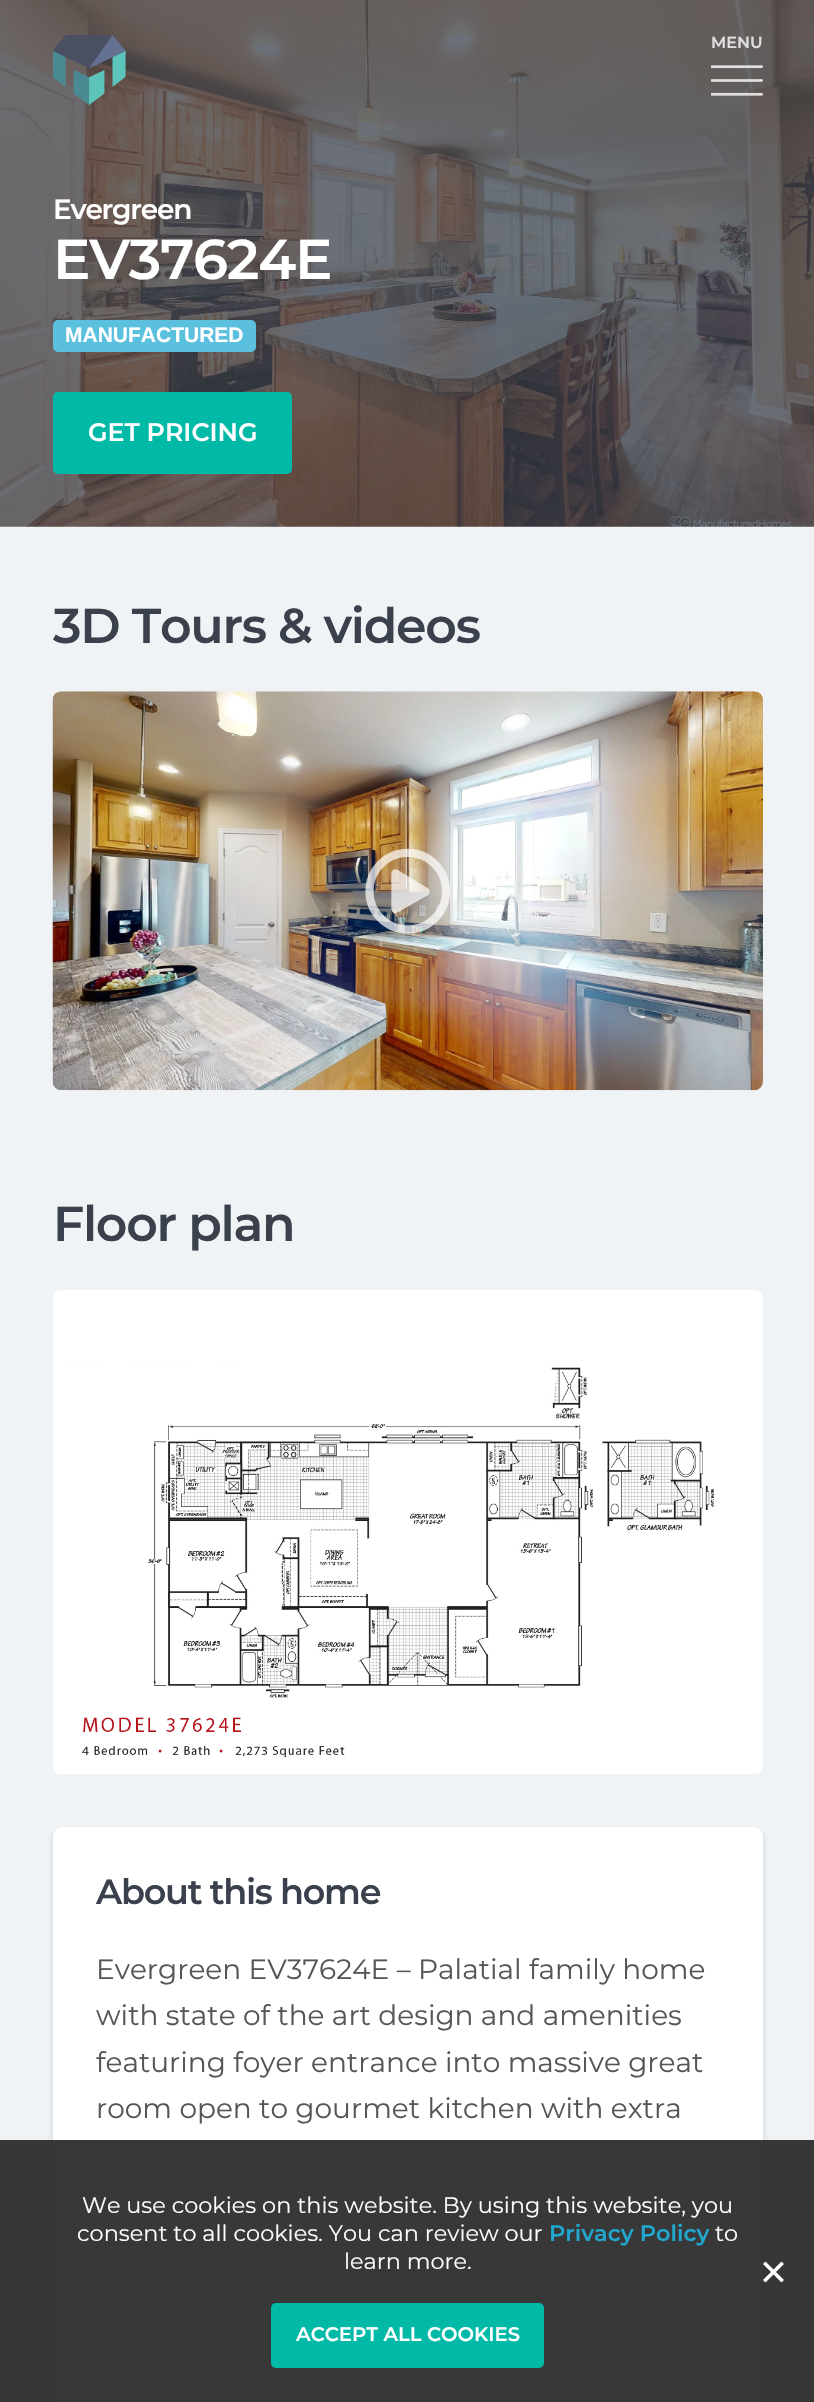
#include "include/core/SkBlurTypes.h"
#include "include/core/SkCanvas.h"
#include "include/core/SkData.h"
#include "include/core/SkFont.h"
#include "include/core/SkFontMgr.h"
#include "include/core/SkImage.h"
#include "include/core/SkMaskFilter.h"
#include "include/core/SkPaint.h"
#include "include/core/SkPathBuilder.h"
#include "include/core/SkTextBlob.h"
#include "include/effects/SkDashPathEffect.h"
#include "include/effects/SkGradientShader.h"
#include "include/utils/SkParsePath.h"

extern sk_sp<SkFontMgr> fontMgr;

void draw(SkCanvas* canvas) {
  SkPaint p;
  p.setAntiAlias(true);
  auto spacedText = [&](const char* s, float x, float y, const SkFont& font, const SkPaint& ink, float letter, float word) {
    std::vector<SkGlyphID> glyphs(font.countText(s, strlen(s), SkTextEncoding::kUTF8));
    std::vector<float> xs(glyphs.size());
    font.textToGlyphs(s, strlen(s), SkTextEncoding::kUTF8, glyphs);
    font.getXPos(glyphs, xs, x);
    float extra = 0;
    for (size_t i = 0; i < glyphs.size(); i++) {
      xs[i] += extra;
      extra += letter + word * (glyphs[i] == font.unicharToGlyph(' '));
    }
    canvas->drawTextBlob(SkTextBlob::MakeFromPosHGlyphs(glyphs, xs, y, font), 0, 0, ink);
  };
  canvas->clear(SkColorSetRGB(240, 243, 246));
  canvas->drawImageRect(SkImages::DeferredFromEncodedData(SkData::MakeFromFileName("images/3.png")), SkRect::MakeLTRB(0, 0, 814, 527), SkSamplingOptions());
  canvas->drawImageRect(SkImages::DeferredFromEncodedData(SkData::MakeFromFileName("images/1.png")), SkRect::MakeLTRB(53, 35, 126, 105), SkSamplingOptions());
  canvas->drawImageRect(SkImages::DeferredFromEncodedData(SkData::MakeFromFileName("images/2.png")), SkRect::MakeLTRB(711, 65, 763, 96), SkSamplingOptions());
  p.setColor(SkColorSetRGB(91, 192, 222));
  canvas->drawRoundRect(SkRect::MakeLTRB(53, 320, 256, 352), 5, 5, p);
  p.setColor(SkColorSetRGB(0, 186, 167));
  canvas->drawRoundRect(SkRect::MakeLTRB(53, 392, 292, 474), 5, 5, p);
  canvas->drawImageRect(SkImages::DeferredFromEncodedData(SkData::MakeFromFileName("images/4.png")), SkRect::MakeLTRB(52, 691, 763, 1091), SkSamplingOptions());
  canvas->drawImageRect(SkImages::DeferredFromEncodedData(SkData::MakeFromFileName("images/5.png")), SkRect::MakeLTRB(365, 848, 450, 934), SkSamplingOptions());
  canvas->drawImageRect(SkImages::DeferredFromEncodedData(SkData::MakeFromFileName("images/6.png")), SkRect::MakeLTRB(53, 1290, 763, 1774), SkSamplingOptions());
  p.setColor(SkColorSetARGB(26, 34, 39, 45));
  p.setMaskFilter(SkMaskFilter::MakeBlur(kNormal_SkBlurStyle, 2));
  canvas->drawRoundRect(SkRect::MakeLTRB(51, 1829, 765, 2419), 11, 11, p);
  p.setMaskFilter(nullptr);
  p.setColor(SK_ColorWHITE);
  canvas->drawRoundRect(SkRect::MakeLTRB(53, 1827, 763, 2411), 9, 9, p);
  p.setColor(SkColorSetARGB(230, 34, 34, 34));
  canvas->drawRect(SkRect::MakeLTRB(0, 2140, 814, 2402), p);
  p.setColor(SK_ColorWHITE);
  canvas->drawPath(SkPathBuilder().moveTo(781.5f, 2261.5f).lineTo(784, 2264).lineTo(765.5f, 2282.5f).lineTo(763, 2280).close().detach(), p);
  canvas->drawPath(SkPathBuilder().moveTo(763, 2264).lineTo(765.5f, 2261.5f).lineTo(784, 2280).lineTo(781.5f, 2282.5f).close().detach(), p);
  p.setColor(SkColorSetRGB(0, 186, 167));
  canvas->drawRoundRect(SkRect::MakeLTRB(271, 2303, 544, 2368), 5, 5, p);
  SkFont font1(fontMgr->matchFamilyStyle("Montserrat", SkFontStyle(600, SkFontStyle::kNormal_Width, SkFontStyle::kUpright_Slant)), 16);
  font1.setSubpixel(true);
  p.setColor(SkColorSetRGB(224, 223, 223));
  canvas->drawString("MENU", 711, 48, font1, p);
  SkFont font2(fontMgr->matchFamilyStyle("Montserrat", SkFontStyle(600, SkFontStyle::kNormal_Width, SkFontStyle::kUpright_Slant)), 28);
  font2.setSubpixel(true);
  p.setColor(SK_ColorWHITE);
  spacedText("Evergreen", 53, 219, font2, p, -1.25f, 0);
  SkFont font3(fontMgr->matchFamilyStyle("Montserrat", SkFontStyle(600, SkFontStyle::kNormal_Width, SkFontStyle::kUpright_Slant)), 56);
  font3.setSubpixel(true);
  spacedText("EV37624E", 53, 279, font3, p, -1.25f, 0);
  SkFont font4(fontMgr->matchFamilyStyle("Liberation Sans", SkFontStyle::Bold()), 21);
  font4.setSubpixel(true);
  canvas->drawString("MANUFACTURED", 65, 342, font4, p);
  SkFont font5(fontMgr->matchFamilyStyle("Montserrat", SkFontStyle(600, SkFontStyle::kNormal_Width, SkFontStyle::kUpright_Slant)), 25.25f);
  font5.setSubpixel(true);
  canvas->drawString("GET PRICING", 88, 441, font5, p);
  SkFont font6(fontMgr->matchFamilyStyle("Montserrat", SkFontStyle(600, SkFontStyle::kNormal_Width, SkFontStyle::kUpright_Slant)), 49);
  font6.setSubpixel(true);
  p.setColor(SkColorSetRGB(58, 65, 76));
  spacedText("3D Tours & videos", 53, 643, font6, p, -1.25f, 0);
  spacedText("Floor plan", 53, 1241, font6, p, -1.25f, 0);
  SkFont font7(fontMgr->matchFamilyStyle("Montserrat", SkFontStyle(600, SkFontStyle::kNormal_Width, SkFontStyle::kUpright_Slant)), 35);
  font7.setSubpixel(true);
  spacedText("About this home", 96, 1904, font7, p, -1.25f, 0);
  SkFont font8(fontMgr->matchFamilyStyle("Montserrat", SkFontStyle::Normal()), 28);
  font8.setSubpixel(true);
  p.setColor(SkColorSetRGB(86, 86, 86));
  canvas->drawString("Evergreen EV37624E – Palatial family home", 96, 1979, font8, p);
  canvas->drawString("with state of the art design and amenities", 96, 2025, font8, p);
  canvas->drawString("featuring foyer entrance into massive great", 96, 2072, font8, p);
  canvas->drawString("room open to gourmet kitchen with extra", 96, 2118, font8, p);
  SkFont font9(fontMgr->matchFamilyStyle("Montserrat", SkFontStyle::Normal()), 22.4f);
  font9.setSubpixel(true);
  p.setColor(SK_ColorWHITE);
  canvas->drawString("We use cookies on this website. By using this website, you", 82, 2213, font9, p);
  canvas->drawString("consent to all cookies. You can review our", 77, 2241, font9, p);
  SkFont font10(fontMgr->matchFamilyStyle("Montserrat", SkFontStyle(600, SkFontStyle::kNormal_Width, SkFontStyle::kUpright_Slant)), 22.4f);
  font10.setSubpixel(true);
  p.setColor(SkColorSetRGB(33, 166, 206));
  canvas->drawString("Privacy Policy", 549, 2241, font10, p);
  p.setColor(SK_ColorWHITE);
  canvas->drawString("to", 715, 2241, font9, p);
  canvas->drawString("learn more.", 344, 2269, font9, p);
  SkFont font11(fontMgr->matchFamilyStyle("Montserrat", SkFontStyle(600, SkFontStyle::kNormal_Width, SkFontStyle::kUpright_Slant)), 19.6f);
  font11.setSubpixel(true);
  canvas->drawString("ACCEPT ALL COOKIES", 296, 2341, font11, p);
}
